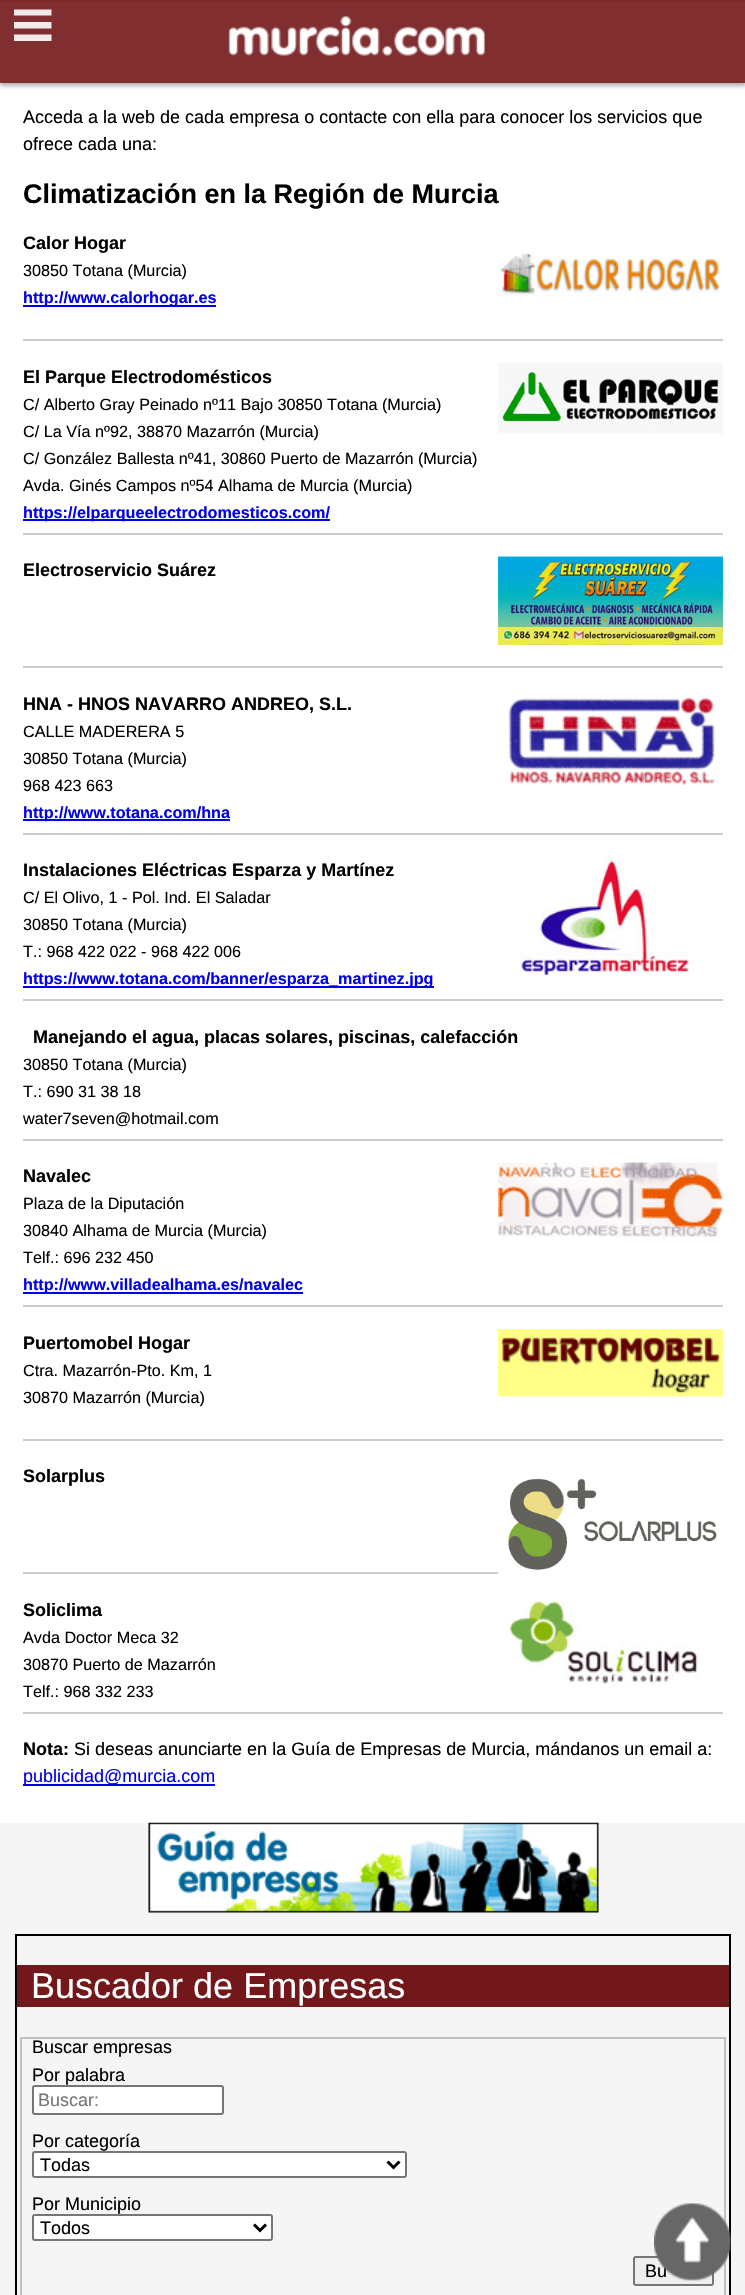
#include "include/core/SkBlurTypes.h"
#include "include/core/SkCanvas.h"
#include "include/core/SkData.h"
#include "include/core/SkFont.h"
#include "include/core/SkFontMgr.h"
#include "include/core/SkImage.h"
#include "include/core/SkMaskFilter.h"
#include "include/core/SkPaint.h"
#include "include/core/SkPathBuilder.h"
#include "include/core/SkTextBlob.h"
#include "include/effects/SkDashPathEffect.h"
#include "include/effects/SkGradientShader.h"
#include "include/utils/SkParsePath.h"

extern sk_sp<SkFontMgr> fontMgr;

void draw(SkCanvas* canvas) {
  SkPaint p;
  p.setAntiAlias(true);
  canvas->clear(SK_ColorWHITE);
  p.setColor(SkColorSetRGB(204, 204, 204));
  canvas->drawRect(SkRect::MakeLTRB(0, 0, 745, 2), p);
  canvas->save();
  canvas->clipPath(SkPathBuilder(SkPathFillType::kEvenOdd).moveTo(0, 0).lineTo(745, 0).lineTo(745, 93).lineTo(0, 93).close().moveTo(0, 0).lineTo(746, 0).lineTo(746, 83).lineTo(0, 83).close().detach(), true);
  p.setColor(SkColorSetRGB(179, 179, 179));
  p.setMaskFilter(SkMaskFilter::MakeBlur(kNormal_SkBlurStyle, 2));
  canvas->drawRect(SkRect::MakeLTRB(0, 3, 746, 86), p);
  p.setMaskFilter(nullptr);
  canvas->restore();
  p.setColor(SkColorSetARGB(230, 114, 23, 26));
  canvas->drawRect(SkRect::MakeLTRB(0, 0, 745, 83), p);
  canvas->drawImageRect(SkImages::DeferredFromEncodedData(SkData::MakeFromFileName("images/1.png")), SkRect::MakeLTRB(228, 15, 485, 56), SkSamplingOptions());
  p.setColor(SkColorSetARGB(230, 255, 255, 255));
  canvas->drawPath(SkPathBuilder(SkPathFillType::kEvenOdd).moveTo(51.5f, 15.5f).lineTo(14, 15.5f).lineTo(14, 9.5f).lineTo(51.5f, 9.5f).close().moveTo(51.5f, 28.5f).lineTo(14, 28.5f).lineTo(14, 22).lineTo(51.5f, 22).close().moveTo(14, 41).lineTo(51.5f, 41).lineTo(51.5f, 34.5f).lineTo(14, 34.5f).close().detach(), p);
  canvas->drawImageRect(SkImages::DeferredFromEncodedData(SkData::MakeFromFileName("images/2.png")), SkRect::MakeLTRB(500, 253, 719, 298), SkSamplingOptions());
  p.setColor(SkColorSetRGB(204, 204, 204));
  canvas->drawRect(SkRect::MakeLTRB(23, 339, 723, 341), p);
  p.setColor(SkColorSetRGB(0, 0, 238));
  canvas->drawRect(SkRect::MakeLTRB(23, 305, 216, 307), p);
  canvas->drawImageRect(SkImages::DeferredFromEncodedData(SkData::MakeFromFileName("images/3.png")), SkRect::MakeLTRB(498, 363, 723, 434), SkSamplingOptions());
  p.setColor(SkColorSetRGB(204, 204, 204));
  canvas->drawRect(SkRect::MakeLTRB(23, 533, 723, 535), p);
  p.setColor(SkColorSetRGB(0, 0, 238));
  canvas->drawRect(SkRect::MakeLTRB(23, 519, 330, 521), p);
  canvas->drawImageRect(SkImages::DeferredFromEncodedData(SkData::MakeFromFileName("images/4.png")), SkRect::MakeLTRB(498, 556, 723, 645), SkSamplingOptions());
  p.setColor(SkColorSetRGB(204, 204, 204));
  canvas->drawRect(SkRect::MakeLTRB(23, 666, 723, 668), p);
  canvas->drawImageRect(SkImages::DeferredFromEncodedData(SkData::MakeFromFileName("images/5.png")), SkRect::MakeLTRB(508, 697, 715, 786), SkSamplingOptions());
  canvas->drawRect(SkRect::MakeLTRB(23, 833, 723, 835), p);
  p.setColor(SkColorSetRGB(0, 0, 238));
  canvas->drawRect(SkRect::MakeLTRB(23, 819, 230, 821), p);
  canvas->drawImageRect(SkImages::DeferredFromEncodedData(SkData::MakeFromFileName("images/6.png")), SkRect::MakeLTRB(519, 856, 689, 975), SkSamplingOptions());
  p.setColor(SkColorSetRGB(204, 204, 204));
  canvas->drawRect(SkRect::MakeLTRB(23, 999, 723, 1001), p);
  p.setColor(SkColorSetRGB(0, 0, 238));
  canvas->drawRect(SkRect::MakeLTRB(23, 986, 434, 988), p);
  p.setColor(SkColorSetRGB(204, 204, 204));
  canvas->drawRect(SkRect::MakeLTRB(23, 1139, 723, 1141), p);
  canvas->drawImageRect(SkImages::DeferredFromEncodedData(SkData::MakeFromFileName("images/7.png")), SkRect::MakeLTRB(498, 1162, 723, 1238), SkSamplingOptions());
  canvas->drawRect(SkRect::MakeLTRB(23, 1305, 723, 1307), p);
  p.setColor(SkColorSetRGB(0, 0, 238));
  canvas->drawRect(SkRect::MakeLTRB(23, 1292, 303, 1294), p);
  canvas->drawImageRect(SkImages::DeferredFromEncodedData(SkData::MakeFromFileName("images/8.png")), SkRect::MakeLTRB(498, 1329, 723, 1397), SkSamplingOptions());
  p.setColor(SkColorSetRGB(204, 204, 204));
  canvas->drawRect(SkRect::MakeLTRB(23, 1439, 723, 1441), p);
  canvas->drawImageRect(SkImages::DeferredFromEncodedData(SkData::MakeFromFileName("images/9.png")), SkRect::MakeLTRB(498, 1478, 723, 1574), SkSamplingOptions());
  canvas->drawRect(SkRect::MakeLTRB(23, 1572, 498, 1574), p);
  canvas->drawImageRect(SkImages::DeferredFromEncodedData(SkData::MakeFromFileName("images/10.png")), SkRect::MakeLTRB(498, 1599, 700, 1684), SkSamplingOptions());
  canvas->drawRect(SkRect::MakeLTRB(23, 1712, 723, 1714), p);
  p.setColor(SkColorSetRGB(0, 0, 238));
  canvas->drawRect(SkRect::MakeLTRB(23, 1784, 215, 1786), p);
  p.setColor(SkColorSetRGB(245, 245, 245));
  canvas->drawRect(SkRect::MakeLTRB(0, 1823, 745, 2295), p);
  canvas->drawImageRect(SkImages::DeferredFromEncodedData(SkData::MakeFromFileName("images/11.png")), SkRect::MakeLTRB(148, 1822, 599, 1913), SkSamplingOptions());
  p.setStyle(SkPaint::kStroke_Style);
  p.setStrokeWidth(2);
  p.setColor(SK_ColorBLACK);
  canvas->drawRect(SkRect::MakeLTRB(16, 1935, 730, 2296), p);
  p.setStyle(SkPaint::kFill_Style);
  p.setColor(SkColorSetRGB(114, 23, 26));
  canvas->drawRect(SkRect::MakeLTRB(17, 1965, 729, 2007), p);
  p.setStyle(SkPaint::kStroke_Style);
  p.setColor(SkColorSetRGB(192, 192, 192));
  canvas->drawRect(SkRect::MakeLTRB(21, 2038, 725, 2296), p);
  p.setStyle(SkPaint::kFill_Style);
  p.setColor(SK_ColorWHITE);
  canvas->drawRoundRect(SkRect::MakeLTRB(33, 2086, 223, 2114), 2, 2, p);
  p.setStyle(SkPaint::kStroke_Style);
  p.setColor(SkColorSetRGB(118, 118, 118));
  canvas->drawRoundRect(SkRect::MakeLTRB(33, 2086, 223, 2114), 2, 2, p);
  p.setStyle(SkPaint::kFill_Style);
  p.setColor(SK_ColorWHITE);
  canvas->drawRoundRect(SkRect::MakeLTRB(33, 2152, 406, 2177), 2, 2, p);
  p.setStyle(SkPaint::kStroke_Style);
  p.setColor(SkColorSetRGB(118, 118, 118));
  canvas->drawRoundRect(SkRect::MakeLTRB(33, 2152, 406, 2177), 2, 2, p);
  p.setStrokeWidth(3);
  p.setColor(SK_ColorBLACK);
  canvas->drawPath(SkPathBuilder().moveTo(387.5f, 2161.5f).lineTo(393.5f, 2167.5f).lineTo(399.5f, 2161.5f).detach(), p);
  p.setStyle(SkPaint::kFill_Style);
  p.setColor(SK_ColorWHITE);
  canvas->drawRoundRect(SkRect::MakeLTRB(33, 2215, 272, 2240), 2, 2, p);
  p.setStyle(SkPaint::kStroke_Style);
  p.setStrokeWidth(2);
  p.setColor(SkColorSetRGB(118, 118, 118));
  canvas->drawRoundRect(SkRect::MakeLTRB(33, 2215, 272, 2240), 2, 2, p);
  p.setStrokeWidth(3);
  p.setColor(SK_ColorBLACK);
  canvas->drawPath(SkPathBuilder().moveTo(254, 2224.5f).lineTo(260, 2230.5f).lineTo(266, 2224.5f).detach(), p);
  p.setStyle(SkPaint::kFill_Style);
  p.setColor(SkColorSetRGB(239, 239, 239));
  canvas->drawRoundRect(SkRect::MakeLTRB(634, 2257, 713, 2285), 2, 2, p);
  p.setStyle(SkPaint::kStroke_Style);
  p.setStrokeWidth(2);
  p.setColor(SkColorSetRGB(118, 118, 118));
  canvas->drawRoundRect(SkRect::MakeLTRB(634, 2257, 713, 2285), 2, 2, p);
  SkFont font1(fontMgr->matchFamilyStyle("Liberation Sans", SkFontStyle::Normal()), 18);
  font1.setSubpixel(true);
  p.setStyle(SkPaint::kFill_Style);
  p.setColor(SK_ColorBLACK);
  canvas->drawString("Acceda a la web de cada empresa o contacte con ella para conocer los servicios que", 23, 123, font1, p);
  canvas->drawString("ofrece cada una:", 23, 150, font1, p);
  SkFont font2(fontMgr->matchFamilyStyle("Liberation Sans", SkFontStyle::Bold()), 27);
  font2.setSubpixel(true);
  canvas->drawString("Climatización en la Región de Murcia", 23, 203, font2, p);
  SkFont font3(fontMgr->matchFamilyStyle("Liberation Sans", SkFontStyle::Bold()), 18);
  font3.setSubpixel(true);
  canvas->drawString("Calor Hogar", 23, 249, font3, p);
  SkFont font4(fontMgr->matchFamilyStyle("Liberation Sans", SkFontStyle::Normal()), 16.2f);
  font4.setSubpixel(true);
  canvas->drawString("30850 Totana (Murcia)", 23, 276, font4, p);
  SkFont font5(fontMgr->matchFamilyStyle("Liberation Sans", SkFontStyle::Bold()), 16.2f);
  font5.setSubpixel(true);
  p.setColor(SkColorSetRGB(0, 0, 238));
  canvas->drawString("http://www.calorhogar.es", 23, 303, font5, p);
  p.setColor(SK_ColorBLACK);
  canvas->drawString("El Parque Electrodomésticos", 23, 383, font3, p);
  canvas->drawString("C/ Alberto Gray Peinado nº11 Bajo 30850 Totana (Murcia)", 23, 410, font4, p);
  canvas->drawString("C/ La Vía nº92, 38870 Mazarrón (Murcia)", 23, 437, font4, p);
  canvas->drawString("C/ González Ballesta nº41, 30860 Puerto de Mazarrón (Murcia)", 23, 464, font4, p);
  canvas->drawString("Avda. Ginés Campos nº54 Alhama de Murcia (Murcia)", 23, 491, font4, p);
  p.setColor(SkColorSetRGB(0, 0, 238));
  canvas->drawString("https://elparqueelectrodomesticos.com/", 23, 518, font5, p);
  p.setColor(SK_ColorBLACK);
  canvas->drawString("Electroservicio Suárez", 23, 576, font3, p);
  canvas->drawString("HNA - HNOS NAVARRO ANDREO, S.L.", 23, 710, font3, p);
  canvas->drawString("CALLE MADERERA 5", 23, 737, font4, p);
  canvas->drawString("30850 Totana (Murcia)", 23, 764, font4, p);
  canvas->drawString("968 423 663", 23, 791, font4, p);
  p.setColor(SkColorSetRGB(0, 0, 238));
  canvas->drawString("http://www.totana.com/hna", 23, 818, font5, p);
  p.setColor(SK_ColorBLACK);
  canvas->drawString("Instalaciones Eléctricas Esparza y Martínez", 23, 876, font3, p);
  canvas->drawString("C/ El Olivo, 1 - Pol. Ind. El Saladar", 23, 903, font4, p);
  canvas->drawString("30850 Totana (Murcia)", 23, 930, font4, p);
  canvas->drawString("T.: 968 422 022 - 968 422 006", 23, 957, font4, p);
  p.setColor(SkColorSetRGB(0, 0, 238));
  canvas->drawString("https://www.totana.com/banner/esparza_martinez.jpg", 23, 984, font5, p);
  p.setColor(SK_ColorBLACK);
  canvas->drawString("Manejando el agua, placas solares, piscinas, calefacción", 33, 1043, font3, p);
  canvas->drawString("30850 Totana (Murcia)", 23, 1070, font4, p);
  canvas->drawString("T.: 690 31 38 18", 23, 1097, font4, p);
  canvas->drawString("water7seven@hotmail.com", 23, 1124, font4, p);
  canvas->drawString("Navalec", 23, 1182, font3, p);
  canvas->drawString("Plaza de la Diputación", 23, 1209, font4, p);
  canvas->drawString("30840 Alhama de Murcia (Murcia)", 23, 1236, font4, p);
  canvas->drawString("Telf.: 696 232 450", 23, 1263, font4, p);
  p.setColor(SkColorSetRGB(0, 0, 238));
  canvas->drawString("http://www.villadealhama.es/navalec", 23, 1290, font5, p);
  p.setColor(SK_ColorBLACK);
  canvas->drawString("Puertomobel Hogar", 23, 1349, font3, p);
  canvas->drawString("Ctra. Mazarrón-Pto. Km, 1", 23, 1376, font4, p);
  canvas->drawString("30870 Mazarrón (Murcia)", 23, 1403, font4, p);
  canvas->drawString("Solarplus", 23, 1482, font3, p);
  canvas->drawString("Soliclima", 23, 1616, font3, p);
  canvas->drawString("Avda Doctor Meca 32", 23, 1643, font4, p);
  canvas->drawString("30870 Puerto de Mazarrón", 23, 1670, font4, p);
  canvas->drawString("Telf.: 968 332 233", 23, 1697, font4, p);
  canvas->drawString("Nota:", 23, 1755, font3, p);
  canvas->drawString("Si deseas anunciarte en la Guía de Empresas de Murcia, mándanos un email a:", 74, 1755, font1, p);
  p.setColor(SkColorSetRGB(0, 0, 238));
  canvas->drawString("publicidad@murcia.com", 23, 1782, font1, p);
  SkFont font6(fontMgr->matchFamilyStyle("Liberation Sans", SkFontStyle::Normal()), 36);
  font6.setSubpixel(true);
  p.setColor(SK_ColorWHITE);
  canvas->drawString("Buscador de Empresas", 31, 1998, font6, p);
  p.setColor(SK_ColorBLACK);
  canvas->drawString("Buscar empresas", 32, 2053, font1, p);
  canvas->drawString("Por palabra", 32, 2081, font1, p);
  p.setColor(SkColorSetRGB(117, 117, 117));
  canvas->drawString("Buscar:", 38, 2106, font1, p);
  p.setColor(SK_ColorBLACK);
  canvas->drawString("Por categoría", 32, 2147, font1, p);
  canvas->drawString("Todas", 40, 2171, font1, p);
  canvas->drawString("Por Municipio", 32, 2210, font1, p);
  canvas->drawString("Todos", 40, 2234, font1, p);
  canvas->drawString("Bu", 645, 2277, font1, p);
  canvas->drawImageRect(SkImages::DeferredFromEncodedData(SkData::MakeFromFileName("images/12.png")), SkRect::MakeLTRB(654, 2203, 731, 2281), SkSamplingOptions());
}
